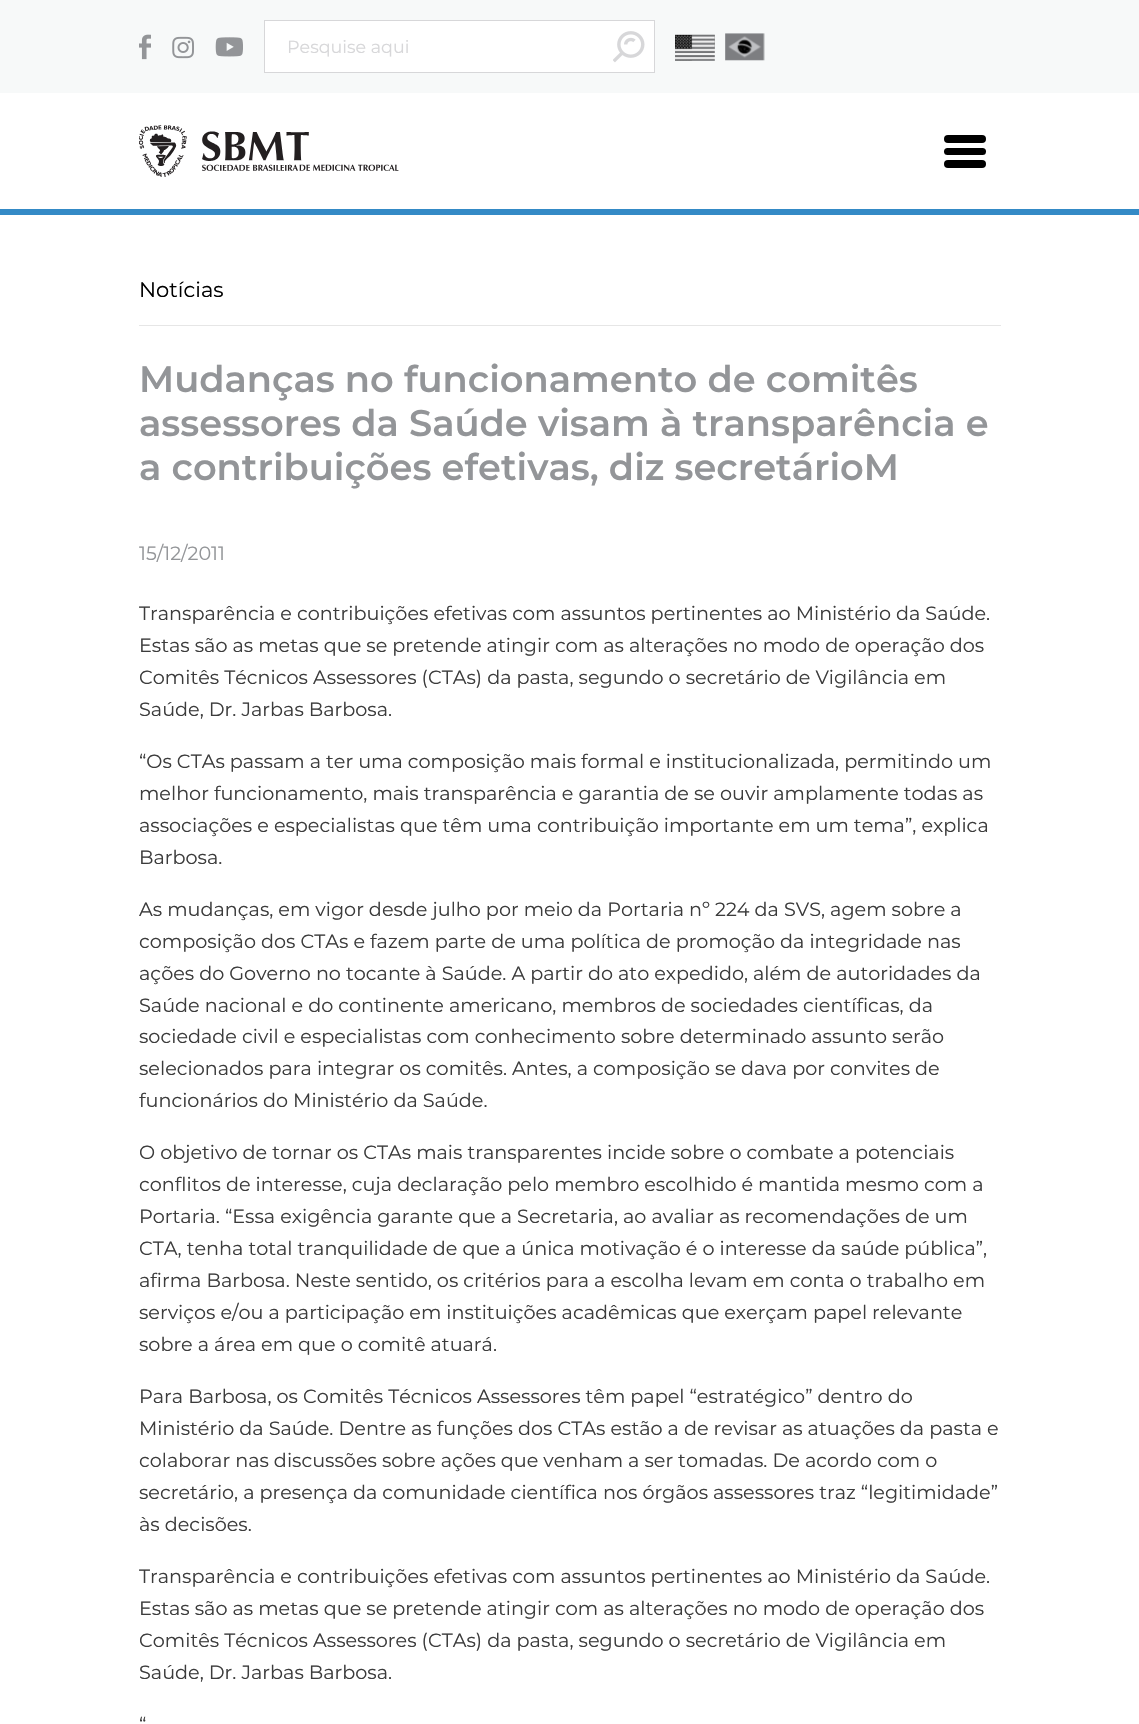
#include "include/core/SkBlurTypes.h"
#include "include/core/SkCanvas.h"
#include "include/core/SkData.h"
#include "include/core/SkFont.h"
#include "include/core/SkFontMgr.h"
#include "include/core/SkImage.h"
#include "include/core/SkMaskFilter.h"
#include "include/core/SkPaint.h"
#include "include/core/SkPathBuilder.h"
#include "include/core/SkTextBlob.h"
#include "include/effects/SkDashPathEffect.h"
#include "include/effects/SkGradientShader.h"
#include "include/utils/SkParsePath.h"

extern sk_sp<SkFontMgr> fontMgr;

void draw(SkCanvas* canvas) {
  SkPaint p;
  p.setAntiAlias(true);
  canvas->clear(SK_ColorWHITE);
  p.setColor(SkColorSetRGB(247, 249, 249));
  canvas->drawRect(SkRect::MakeLTRB(0, 0, 1139, 93), p);
  canvas->drawImageRect(SkImages::DeferredFromEncodedData(SkData::MakeFromFileName("images/1.png")), SkRect::MakeLTRB(139, 34, 151, 60), SkSamplingOptions());
  canvas->drawImageRect(SkImages::DeferredFromEncodedData(SkData::MakeFromFileName("images/2.png")), SkRect::MakeLTRB(172, 36, 194, 59), SkSamplingOptions());
  canvas->drawImageRect(SkImages::DeferredFromEncodedData(SkData::MakeFromFileName("images/3.png")), SkRect::MakeLTRB(215, 37, 243, 57), SkSamplingOptions());
  p.setColor(SK_ColorWHITE);
  canvas->drawRect(SkRect::MakeLTRB(264.5f, 20.5f, 654.5f, 72.5f), p);
  p.setStyle(SkPaint::kStroke_Style);
  p.setStrokeWidth(1);
  p.setColor(SkColorSetRGB(215, 215, 217));
  canvas->drawRect(SkRect::MakeLTRB(264.5f, 20.5f, 654.5f, 72.5f), p);
  canvas->drawImageRect(SkImages::DeferredFromEncodedData(SkData::MakeFromFileName("images/4.png")), SkRect::MakeLTRB(613, 31, 645, 63), SkSamplingOptions());
  canvas->drawImageRect(SkImages::DeferredFromEncodedData(SkData::MakeFromFileName("images/5.png")), SkRect::MakeLTRB(675, 34, 715, 61), SkSamplingOptions());
  canvas->drawImageRect(SkImages::DeferredFromEncodedData(SkData::MakeFromFileName("images/6.png")), SkRect::MakeLTRB(725, 33, 765, 61), SkSamplingOptions());
  p.setStyle(SkPaint::kFill_Style);
  p.setColor(SkColorSetRGB(52, 138, 198));
  canvas->drawRect(SkRect::MakeLTRB(0, 209, 1139, 215), p);
  canvas->drawImageRect(SkImages::DeferredFromEncodedData(SkData::MakeFromFileName("images/7.png")), SkRect::MakeLTRB(139, 125, 399, 177), SkSamplingOptions());
  p.setColor(SK_ColorBLACK);
  canvas->drawRoundRect(SkRect::MakeLTRB(944, 135, 986, 143), 4, 4, p);
  canvas->drawRoundRect(SkRect::MakeLTRB(944, 148, 986, 155), 3.5f, 3.5f, p);
  canvas->drawRoundRect(SkRect::MakeLTRB(944, 160, 986, 168), 4, 4, p);
  p.setColor(SkColorSetRGB(230, 230, 230));
  canvas->drawRect(SkRect::MakeLTRB(139, 325, 1001, 326), p);
  SkFont font1(fontMgr->matchFamilyStyle("Montserrat", SkFontStyle::Normal()), 17.5f);
  font1.setSubpixel(true);
  p.setColor(SkColorSetRGB(215, 215, 217));
  canvas->drawString("Pesquise aqui", 287, 53, font1, p);
  SkFont font2(fontMgr->matchFamilyStyle("Montserrat", SkFontStyle::Normal()), 21);
  font2.setSubpixel(true);
  p.setColor(SK_ColorBLACK);
  canvas->drawString("Notícias", 139, 297, font2, p);
  SkFont font3(fontMgr->matchFamilyStyle("Montserrat", SkFontStyle(600, SkFontStyle::kNormal_Width, SkFontStyle::kUpright_Slant)), 36.8f);
  font3.setSubpixel(true);
  p.setColor(SkColorSetRGB(147, 149, 152));
  canvas->drawString("Mudanças no funcionamento de comitês", 139, 392, font3, p);
  canvas->drawString("assessores da Saúde visam à transparência e", 139, 436, font3, p);
  canvas->drawString("a contribuições efetivas, diz secretárioM", 139, 480, font3, p);
  SkFont font4(fontMgr->matchFamilyStyle("Montserrat", SkFontStyle::Normal()), 19.2f);
  font4.setSubpixel(true);
  canvas->drawString("15/12/2011", 139, 560, font4, p);
  p.setColor(SkColorSetRGB(60, 60, 60));
  canvas->drawString("Transparência e contribuições efetivas com assuntos pertinentes ao Ministério da Saúde.", 139, 620, font4, p);
  canvas->drawString("Estas são as metas que se pretende atingir com as alterações no modo de operação dos", 139, 652, font4, p);
  canvas->drawString("Comitês Técnicos Assessores (CTAs) da pasta, segundo o secretário de Vigilância em", 139, 684, font4, p);
  canvas->drawString("Saúde, Dr. Jarbas Barbosa.", 139, 716, font4, p);
  canvas->drawString("“Os CTAs passam a ter uma composição mais formal e institucionalizada, permitindo um", 139, 768, font4, p);
  canvas->drawString("melhor funcionamento, mais transparência e garantia de se ouvir amplamente todas as", 139, 800, font4, p);
  canvas->drawString("associações e especialistas que têm uma contribuição importante em um tema”, explica", 139, 832, font4, p);
  canvas->drawString("Barbosa.", 139, 864, font4, p);
  canvas->drawString("As mudanças, em vigor desde julho por meio da Portaria nº 224 da SVS, agem sobre a", 139, 916, font4, p);
  canvas->drawString("composição dos CTAs e fazem parte de uma política de promoção da integridade nas", 139, 948, font4, p);
  canvas->drawString("ações do Governo no tocante à Saúde. A partir do ato expedido, além de autoridades da", 139, 980, font4, p);
  canvas->drawString("Saúde nacional e do continente americano, membros de sociedades científicas, da", 139, 1012, font4, p);
  canvas->drawString("sociedade civil e especialistas com conhecimento sobre determinado assunto serão", 139, 1043, font4, p);
  canvas->drawString("selecionados para integrar os comitês. Antes, a composição se dava por convites de", 139, 1075, font4, p);
  canvas->drawString("funcionários do Ministério da Saúde.", 139, 1107, font4, p);
  canvas->drawString("O objetivo de tornar os CTAs mais transparentes incide sobre o combate a potenciais", 139, 1159, font4, p);
  canvas->drawString("conflitos de interesse, cuja declaração pelo membro escolhido é mantida mesmo com a", 139, 1191, font4, p);
  canvas->drawString("Portaria. “Essa exigência garante que a Secretaria, ao avaliar as recomendações de um", 139, 1223, font4, p);
  canvas->drawString("CTA, tenha total tranquilidade de que a única motivação é o interesse da saúde pública”,", 139, 1255, font4, p);
  canvas->drawString("afirma Barbosa. Neste sentido, os critérios para a escolha levam em conta o trabalho em", 139, 1287, font4, p);
  canvas->drawString("serviços e/ou a participação em instituições acadêmicas que exerçam papel relevante", 139, 1319, font4, p);
  canvas->drawString("sobre a área em que o comitê atuará.", 139, 1351, font4, p);
  canvas->drawString("Para Barbosa, os Comitês Técnicos Assessores têm papel “estratégico” dentro do", 139, 1403, font4, p);
  canvas->drawString("Ministério da Saúde. Dentre as funções dos CTAs estão a de revisar as atuações da pasta e", 139, 1435, font4, p);
  canvas->drawString("colaborar nas discussões sobre ações que venham a ser tomadas. De acordo com o", 139, 1467, font4, p);
  canvas->drawString("secretário, a presença da comunidade científica nos órgãos assessores traz “legitimidade”", 139, 1499, font4, p);
  canvas->drawString("às decisões.", 139, 1531, font4, p);
  canvas->drawString("Transparência e contribuições efetivas com assuntos pertinentes ao Ministério da Saúde.", 139, 1583, font4, p);
  canvas->drawString("Estas são as metas que se pretende atingir com as alterações no modo de operação dos", 139, 1615, font4, p);
  canvas->drawString("Comitês Técnicos Assessores (CTAs) da pasta, segundo o secretário de Vigilância em", 139, 1647, font4, p);
  canvas->drawString("Saúde, Dr. Jarbas Barbosa.", 139, 1679, font4, p);
  canvas->drawString("“", 139, 1731, font4, p);
}
